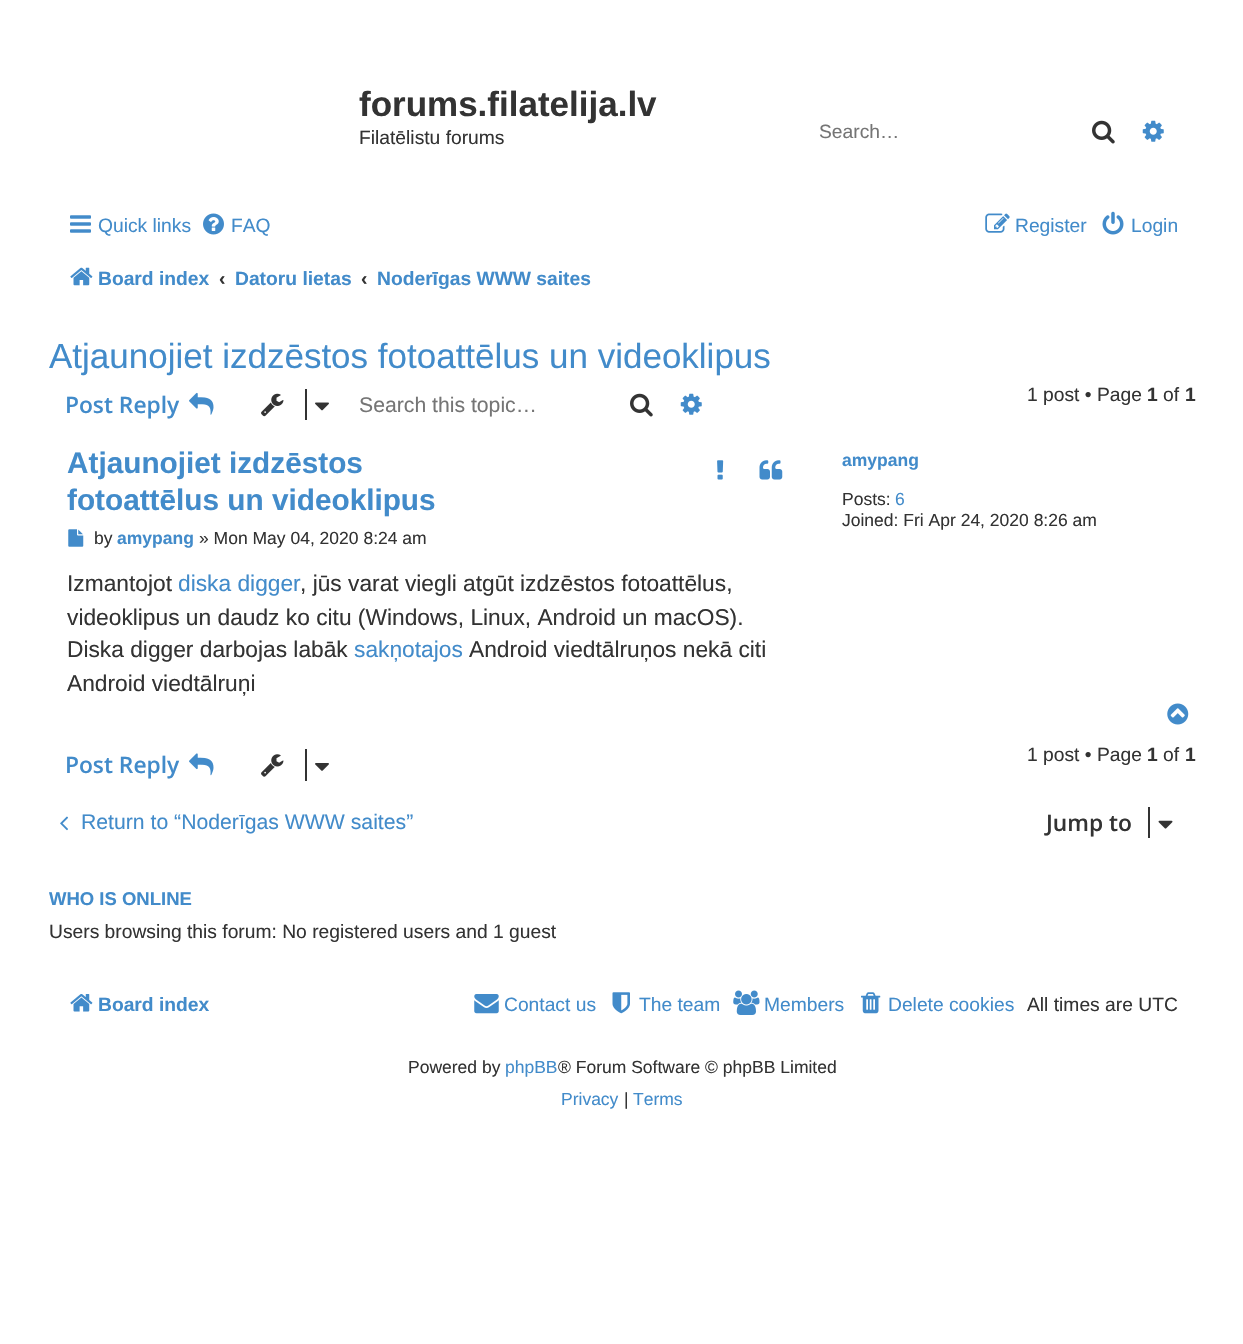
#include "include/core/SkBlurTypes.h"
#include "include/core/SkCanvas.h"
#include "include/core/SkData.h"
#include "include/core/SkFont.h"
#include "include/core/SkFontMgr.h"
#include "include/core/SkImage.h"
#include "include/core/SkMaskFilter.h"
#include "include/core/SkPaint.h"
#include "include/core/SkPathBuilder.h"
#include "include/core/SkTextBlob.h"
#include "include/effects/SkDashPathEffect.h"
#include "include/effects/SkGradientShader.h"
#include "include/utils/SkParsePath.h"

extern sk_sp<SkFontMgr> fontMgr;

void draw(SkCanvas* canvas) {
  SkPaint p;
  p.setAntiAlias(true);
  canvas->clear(SK_ColorWHITE);
  canvas->drawImageRect(SkImages::DeferredFromEncodedData(SkData::MakeFromFileName("images/1.png")), SkRect::MakeLTRB(1092, 120, 1115, 144), SkSamplingOptions());
  canvas->drawImageRect(SkImages::DeferredFromEncodedData(SkData::MakeFromFileName("images/2.png")), SkRect::MakeLTRB(1142, 120, 1164, 142), SkSamplingOptions());
  canvas->drawImageRect(SkImages::DeferredFromEncodedData(SkData::MakeFromFileName("images/3.png")), SkRect::MakeLTRB(70, 215, 91, 233), SkSamplingOptions());
  canvas->drawImageRect(SkImages::DeferredFromEncodedData(SkData::MakeFromFileName("images/4.png")), SkRect::MakeLTRB(203, 213, 224, 235), SkSamplingOptions());
  canvas->drawImageRect(SkImages::DeferredFromEncodedData(SkData::MakeFromFileName("images/5.png")), SkRect::MakeLTRB(985, 213, 1010, 233), SkSamplingOptions());
  canvas->drawImageRect(SkImages::DeferredFromEncodedData(SkData::MakeFromFileName("images/6.png")), SkRect::MakeLTRB(1102, 211, 1124, 235), SkSamplingOptions());
  canvas->drawImageRect(SkImages::DeferredFromEncodedData(SkData::MakeFromFileName("images/7.png")), SkRect::MakeLTRB(70, 267, 93, 286), SkSamplingOptions());
  canvas->drawImageRect(SkImages::DeferredFromEncodedData(SkData::MakeFromFileName("images/8.png")), SkRect::MakeLTRB(189, 392, 214, 415), SkSamplingOptions());
  canvas->drawImageRect(SkImages::DeferredFromEncodedData(SkData::MakeFromFileName("images/9.png")), SkRect::MakeLTRB(261, 393, 284, 417), SkSamplingOptions());
  p.setColor(SkColorSetRGB(51, 51, 51));
  canvas->drawRect(SkRect::MakeLTRB(305, 389, 307, 420), p);
  canvas->drawImageRect(SkImages::DeferredFromEncodedData(SkData::MakeFromFileName("images/10.png")), SkRect::MakeLTRB(315, 402, 329, 411), SkSamplingOptions());
  canvas->drawImageRect(SkImages::DeferredFromEncodedData(SkData::MakeFromFileName("images/1.png")), SkRect::MakeLTRB(630, 393, 653, 417), SkSamplingOptions());
  canvas->drawImageRect(SkImages::DeferredFromEncodedData(SkData::MakeFromFileName("images/2.png")), SkRect::MakeLTRB(680, 393, 702, 415), SkSamplingOptions());
  canvas->drawImageRect(SkImages::DeferredFromEncodedData(SkData::MakeFromFileName("images/11.png")), SkRect::MakeLTRB(717, 460, 724, 480), SkSamplingOptions());
  canvas->drawImageRect(SkImages::DeferredFromEncodedData(SkData::MakeFromFileName("images/12.png")), SkRect::MakeLTRB(759, 460, 783, 480), SkSamplingOptions());
  canvas->drawImageRect(SkImages::DeferredFromEncodedData(SkData::MakeFromFileName("images/13.png")), SkRect::MakeLTRB(68, 529, 84, 547), SkSamplingOptions());
  canvas->drawImageRect(SkImages::DeferredFromEncodedData(SkData::MakeFromFileName("images/14.png")), SkRect::MakeLTRB(1167, 703, 1189, 725), SkSamplingOptions());
  canvas->drawImageRect(SkImages::DeferredFromEncodedData(SkData::MakeFromFileName("images/15.png")), SkRect::MakeLTRB(189, 753, 214, 776), SkSamplingOptions());
  canvas->drawImageRect(SkImages::DeferredFromEncodedData(SkData::MakeFromFileName("images/16.png")), SkRect::MakeLTRB(261, 754, 284, 777), SkSamplingOptions());
  canvas->drawRect(SkRect::MakeLTRB(305, 749, 307, 781), p);
  canvas->drawImageRect(SkImages::DeferredFromEncodedData(SkData::MakeFromFileName("images/17.png")), SkRect::MakeLTRB(315, 763, 329, 771), SkSamplingOptions());
  canvas->drawImageRect(SkImages::DeferredFromEncodedData(SkData::MakeFromFileName("images/18.png")), SkRect::MakeLTRB(60, 816, 68, 831), SkSamplingOptions());
  canvas->drawRect(SkRect::MakeLTRB(1148, 807, 1150, 838), p);
  canvas->drawImageRect(SkImages::DeferredFromEncodedData(SkData::MakeFromFileName("images/19.png")), SkRect::MakeLTRB(1158, 820, 1173, 829), SkSamplingOptions());
  canvas->drawImageRect(SkImages::DeferredFromEncodedData(SkData::MakeFromFileName("images/20.png")), SkRect::MakeLTRB(70, 994, 93, 1012), SkSamplingOptions());
  canvas->drawImageRect(SkImages::DeferredFromEncodedData(SkData::MakeFromFileName("images/21.png")), SkRect::MakeLTRB(474, 994, 499, 1014), SkSamplingOptions());
  canvas->drawImageRect(SkImages::DeferredFromEncodedData(SkData::MakeFromFileName("images/22.png")), SkRect::MakeLTRB(612, 992, 630, 1014), SkSamplingOptions());
  canvas->drawImageRect(SkImages::DeferredFromEncodedData(SkData::MakeFromFileName("images/23.png")), SkRect::MakeLTRB(733, 990, 760, 1015), SkSamplingOptions());
  canvas->drawImageRect(SkImages::DeferredFromEncodedData(SkData::MakeFromFileName("images/24.png")), SkRect::MakeLTRB(861, 992, 881, 1014), SkSamplingOptions());
  SkFont font1(fontMgr->matchFamilyStyle("Liberation Sans", SkFontStyle::Bold()), 35);
  font1.setSubpixel(true);
  canvas->drawString("forums.filatelija.lv", 359, 116, font1, p);
  SkFont font2(fontMgr->matchFamilyStyle("Liberation Sans", SkFontStyle::Normal()), 19.25f);
  font2.setSubpixel(true);
  canvas->drawString("Filatēlistu forums", 359, 144, font2, p);
  p.setColor(SkColorSetRGB(117, 117, 117));
  canvas->drawString("Search…", 819, 138, font2, p);
  p.setColor(SkColorSetRGB(66, 139, 202));
  canvas->drawString("Quick links", 98, 232, font2, p);
  canvas->drawString("FAQ", 231, 232, font2, p);
  canvas->drawString("Register", 1015, 232, font2, p);
  canvas->drawString("Login", 1131, 232, font2, p);
  SkFont font3(fontMgr->matchFamilyStyle("Liberation Sans", SkFontStyle::Bold()), 19.25f);
  font3.setSubpixel(true);
  canvas->drawString("Board index", 98, 285, font3, p);
  p.setColor(SkColorSetRGB(51, 51, 51));
  canvas->drawString("‹", 219, 285, font3, p);
  p.setColor(SkColorSetRGB(66, 139, 202));
  canvas->drawString("Datoru lietas", 235, 285, font3, p);
  p.setColor(SkColorSetRGB(51, 51, 51));
  canvas->drawString("‹", 361, 285, font3, p);
  p.setColor(SkColorSetRGB(66, 139, 202));
  canvas->drawString("Noderīgas WWW saites", 377, 285, font3, p);
  SkFont font4(fontMgr->matchFamilyStyle("Liberation Sans", SkFontStyle::Normal()), 35);
  font4.setSubpixel(true);
  canvas->drawString("Atjaunojiet izdzēstos fotoattēlus un videoklipus", 49, 368, font4, p);
  SkFont font5(fontMgr->matchFamilyStyle("Open Sans", SkFontStyle(600, SkFontStyle::kNormal_Width, SkFontStyle::kUpright_Slant)), 22.75f);
  font5.setSubpixel(true);
  canvas->drawString("Post Reply", 65, 413, font5, p);
  SkFont font6(fontMgr->matchFamilyStyle("Liberation Sans", SkFontStyle::Normal()), 21.2f);
  font6.setSubpixel(true);
  p.setColor(SkColorSetRGB(117, 117, 117));
  canvas->drawString("Search this topic…", 359, 412, font6, p);
  p.setColor(SkColorSetRGB(51, 51, 51));
  canvas->drawString("1 post • Page", 1027, 401, font2, p);
  canvas->drawString("1", 1147, 401, font3, p);
  canvas->drawString("of", 1163, 401, font2, p);
  canvas->drawString("1", 1185, 401, font3, p);
  SkFont font7(fontMgr->matchFamilyStyle("Liberation Sans", SkFontStyle::Bold()), 29.75f);
  font7.setSubpixel(true);
  p.setColor(SkColorSetRGB(66, 139, 202));
  canvas->drawString("Atjaunojiet izdzēstos", 67, 473, font7, p);
  canvas->drawString("fotoattēlus un videoklipus", 67, 510, font7, p);
  SkFont font8(fontMgr->matchFamilyStyle("Liberation Sans", SkFontStyle::Normal()), 17.5f);
  font8.setSubpixel(true);
  p.setColor(SkColorSetRGB(51, 51, 51));
  canvas->drawString("by", 94, 544, font8, p);
  SkFont font9(fontMgr->matchFamilyStyle("Liberation Sans", SkFontStyle::Bold()), 17.5f);
  font9.setSubpixel(true);
  p.setColor(SkColorSetRGB(66, 139, 202));
  canvas->drawString("amypang", 117, 544, font9, p);
  p.setColor(SkColorSetRGB(51, 51, 51));
  canvas->drawString("» Mon May 04, 2020 8:24 am", 199, 544, font8, p);
  SkFont font10(fontMgr->matchFamilyStyle("Liberation Sans", SkFontStyle::Normal()), 22.75f);
  font10.setSubpixel(true);
  canvas->drawString("Izmantojot", 67, 591, font10, p);
  p.setColor(SkColorSetRGB(66, 139, 202));
  canvas->drawString("diska digger", 178, 591, font10, p);
  p.setColor(SkColorSetRGB(51, 51, 51));
  canvas->drawString(", jūs varat viegli atgūt izdzēstos fotoattēlus,", 300, 591, font10, p);
  canvas->drawString("videoklipus un daudz ko citu (Windows, Linux, Android un macOS).", 67, 625, font10, p);
  canvas->drawString("Diska digger darbojas labāk", 67, 657, font10, p);
  p.setColor(SkColorSetRGB(66, 139, 202));
  canvas->drawString("sakņotajos", 354, 657, font10, p);
  p.setColor(SkColorSetRGB(51, 51, 51));
  canvas->drawString("Android viedtālruņos nekā citi", 469, 657, font10, p);
  canvas->drawString("Android viedtālruņi", 67, 691, font10, p);
  p.setColor(SkColorSetRGB(66, 139, 202));
  canvas->drawString("amypang", 842, 466, font9, p);
  p.setColor(SkColorSetRGB(51, 51, 51));
  canvas->drawString("Posts:", 842, 505, font8, p);
  p.setColor(SkColorSetRGB(66, 139, 202));
  canvas->drawString("6", 895, 505, font8, p);
  p.setColor(SkColorSetRGB(51, 51, 51));
  canvas->drawString("Joined: Fri Apr 24, 2020 8:26 am", 842, 526, font8, p);
  p.setColor(SkColorSetRGB(66, 139, 202));
  canvas->drawString("Post Reply", 65, 773, font5, p);
  p.setColor(SkColorSetRGB(51, 51, 51));
  canvas->drawString("1 post • Page", 1027, 761, font2, p);
  canvas->drawString("1", 1147, 761, font3, p);
  canvas->drawString("of", 1163, 761, font2, p);
  canvas->drawString("1", 1185, 761, font3, p);
  p.setColor(SkColorSetRGB(66, 139, 202));
  canvas->drawString("Return to “Noderīgas WWW saites”", 81, 829, font6, p);
  p.setColor(SkColorSetRGB(51, 51, 51));
  canvas->drawString("Jump to", 1046, 831, font5, p);
  SkFont font11(fontMgr->matchFamilyStyle("Liberation Sans", SkFontStyle::Bold()), 18.5f);
  font11.setSubpixel(true);
  p.setColor(SkColorSetRGB(66, 139, 202));
  canvas->drawString("WHO IS ONLINE", 49, 905, font11, p);
  p.setColor(SkColorSetRGB(51, 51, 51));
  canvas->drawString("Users browsing this forum: No registered users and 1 guest", 49, 938, font2, p);
  p.setColor(SkColorSetRGB(66, 139, 202));
  canvas->drawString("Board index", 98, 1011, font3, p);
  canvas->drawString("Contact us", 504, 1011, font2, p);
  canvas->drawString("The team", 639, 1011, font2, p);
  canvas->drawString("Members", 764, 1011, font2, p);
  canvas->drawString("Delete cookies", 888, 1011, font2, p);
  p.setColor(SkColorSetRGB(51, 51, 51));
  canvas->drawString("All times are UTC", 1027, 1011, font2, p);
  canvas->drawString("Powered by", 408, 1073, font8, p);
  p.setColor(SkColorSetRGB(66, 139, 202));
  canvas->drawString("phpBB", 505, 1073, font8, p);
  p.setColor(SkColorSetRGB(51, 51, 51));
  canvas->drawString("® Forum Software © phpBB Limited", 558, 1073, font8, p);
  p.setColor(SkColorSetRGB(66, 139, 202));
  canvas->drawString("Privacy", 561, 1105, font8, p);
  p.setColor(SkColorSetRGB(51, 51, 51));
  canvas->drawString("|", 624, 1105, font8, p);
  p.setColor(SkColorSetRGB(66, 139, 202));
  canvas->drawString("Terms", 633, 1105, font8, p);
}
